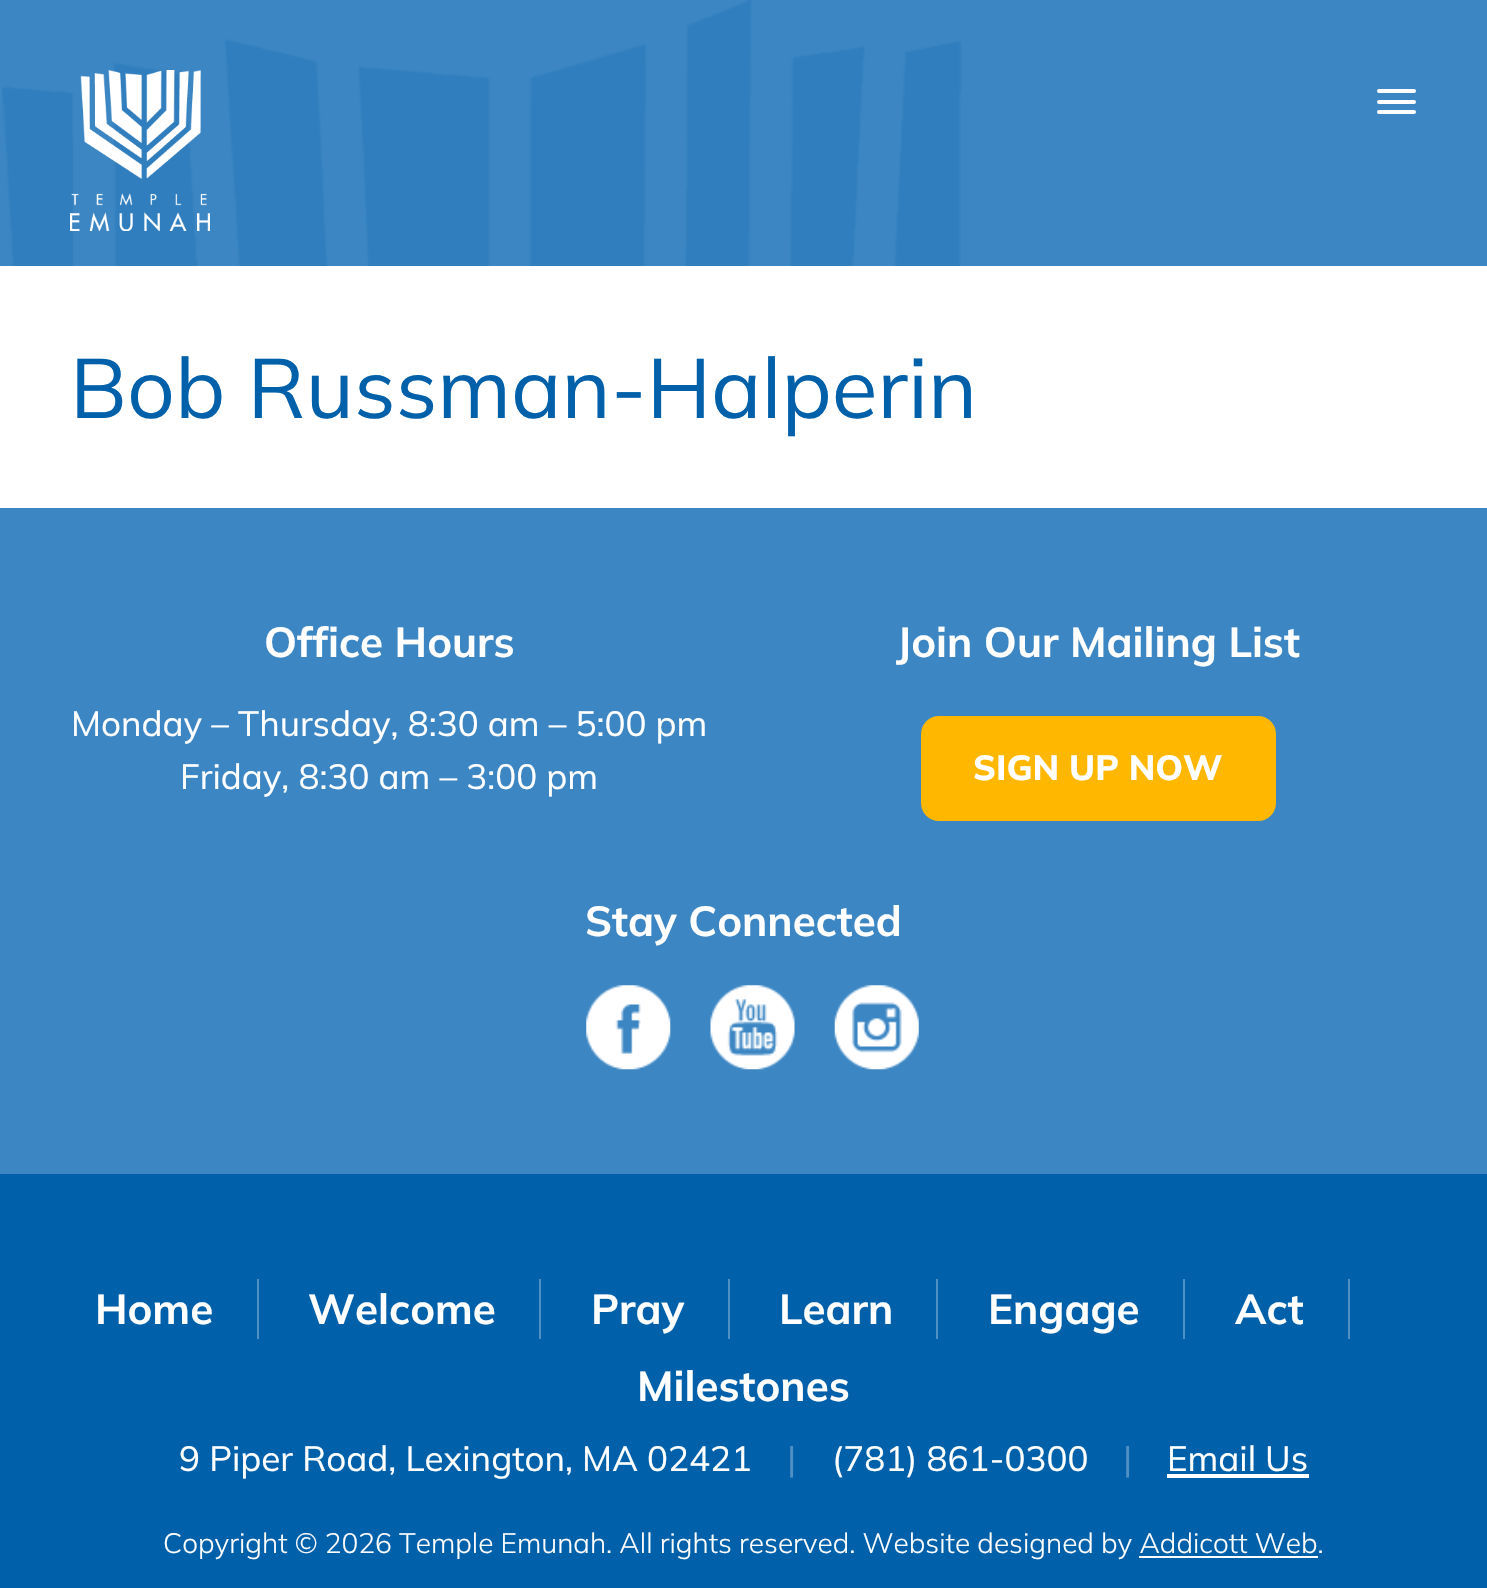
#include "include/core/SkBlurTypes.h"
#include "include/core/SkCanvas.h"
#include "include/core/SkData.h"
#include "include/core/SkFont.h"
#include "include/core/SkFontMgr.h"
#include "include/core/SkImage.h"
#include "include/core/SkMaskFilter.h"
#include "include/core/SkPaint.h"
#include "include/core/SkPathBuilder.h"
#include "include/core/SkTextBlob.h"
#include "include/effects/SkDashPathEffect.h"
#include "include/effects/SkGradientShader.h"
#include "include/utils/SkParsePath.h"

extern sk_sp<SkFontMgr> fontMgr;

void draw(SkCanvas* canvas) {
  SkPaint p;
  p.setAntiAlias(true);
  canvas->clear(SK_ColorWHITE);
  p.setColor(SkColorSetRGB(60, 134, 195));
  canvas->drawRect(SkRect::MakeLTRB(0, 0, 1487, 266), p);
  canvas->drawImageRect(SkImages::DeferredFromEncodedData(SkData::MakeFromFileName("images/1.png")), SkRect::MakeLTRB(2, 0, 962, 266), SkSamplingOptions());
  canvas->drawImageRect(SkImages::DeferredFromEncodedData(SkData::MakeFromFileName("images/2.png")), SkRect::MakeLTRB(70, 70, 210, 231), SkSamplingOptions());
  p.setColor(SK_ColorWHITE);
  canvas->drawRoundRect(SkRect::MakeLTRB(1377, 89, 1416, 93), 2, 2, p);
  canvas->drawRoundRect(SkRect::MakeLTRB(1377, 100, 1416, 104), 2, 2, p);
  canvas->drawRoundRect(SkRect::MakeLTRB(1377, 110, 1416, 114), 2, 2, p);
  p.setColor(SkColorSetRGB(60, 134, 195));
  canvas->drawRect(SkRect::MakeLTRB(0, 508, 1487, 1174), p);
  p.setColor(SkColorSetRGB(255, 183, 0));
  canvas->drawRoundRect(SkRect::MakeLTRB(921, 716, 1276, 821), 18, 18, p);
  canvas->drawImageRect(SkImages::DeferredFromEncodedData(SkData::MakeFromFileName("images/3.png")), SkRect::MakeLTRB(586, 985, 671, 1070), SkSamplingOptions());
  canvas->drawImageRect(SkImages::DeferredFromEncodedData(SkData::MakeFromFileName("images/4.png")), SkRect::MakeLTRB(710, 985, 795, 1070), SkSamplingOptions());
  canvas->drawImageRect(SkImages::DeferredFromEncodedData(SkData::MakeFromFileName("images/5.png")), SkRect::MakeLTRB(834, 985, 919, 1070), SkSamplingOptions());
  p.setColor(SkColorSetRGB(0, 96, 170));
  canvas->drawRect(SkRect::MakeLTRB(0, 1174, 1487, 1588), p);
  p.setColor(SkColorSetRGB(77, 144, 196));
  canvas->drawRect(SkRect::MakeLTRB(257, 1279, 259, 1339), p);
  canvas->drawRect(SkRect::MakeLTRB(539, 1279, 541, 1339), p);
  canvas->drawRect(SkRect::MakeLTRB(728, 1279, 730, 1339), p);
  canvas->drawRect(SkRect::MakeLTRB(936, 1279, 938, 1339), p);
  canvas->drawRect(SkRect::MakeLTRB(1183, 1279, 1185, 1339), p);
  canvas->drawRect(SkRect::MakeLTRB(1348, 1279, 1350, 1339), p);
  p.setColor(SK_ColorWHITE);
  canvas->drawRect(SkRect::MakeLTRB(1167, 1474, 1309, 1478), p);
  canvas->drawRect(SkRect::MakeLTRB(1139, 1556, 1318, 1558), p);
  SkFont font1(fontMgr->matchFamilyStyle("Mulish", SkFontStyle::Normal()), 84);
  font1.setSubpixel(true);
  p.setColor(SkColorSetRGB(0, 96, 170));
  canvas->drawString("Bob Russman-Halperin", 70, 418, font1, p);
  SkFont font2(fontMgr->matchFamilyStyle("Mulish", SkFontStyle::Bold()), 42);
  font2.setSubpixel(true);
  p.setColor(SK_ColorWHITE);
  canvas->drawString("Office Hours", 264, 657, font2, p);
  SkFont font3(fontMgr->matchFamilyStyle("Mulish", SkFontStyle::Normal()), 35);
  font3.setSubpixel(true);
  canvas->drawString("Monday – Thursday, 8:30 am – 5:00 pm", 71, 736, font3, p);
  canvas->drawString("Friday, 8:30 am – 3:00 pm", 180, 789, font3, p);
  canvas->drawString("Join Our Mailing List", 896, 657, font2, p);
  SkFont font4(fontMgr->matchFamilyStyle("Mulish", SkFontStyle(800, SkFontStyle::kNormal_Width, SkFontStyle::kUpright_Slant)), 35);
  font4.setSubpixel(true);
  canvas->drawString("SIGN UP NOW", 973, 780, font4, p);
  canvas->drawString("Stay Connected", 585, 936, font2, p);
  canvas->drawString("Home", 95, 1324, font2, p);
  canvas->drawString("Welcome", 308, 1324, font2, p);
  canvas->drawString("Pray", 591, 1324, font2, p);
  canvas->drawString("Learn", 779, 1324, font2, p);
  canvas->drawString("Engage", 988, 1324, font2, p);
  canvas->drawString("Act", 1235, 1324, font2, p);
  canvas->drawString("Milestones", 637, 1401, font2, p);
  canvas->drawString("9 Piper Road, Lexington, MA 02421", 179, 1471, font3, p);
  p.setColor(SkColorSetRGB(77, 144, 196));
  canvas->drawString("|", 787, 1471, font3, p);
  p.setColor(SK_ColorWHITE);
  canvas->drawString("(781) 861-0300", 832, 1471, font3, p);
  p.setColor(SkColorSetRGB(77, 144, 196));
  canvas->drawString("|", 1123, 1471, font3, p);
  p.setColor(SK_ColorWHITE);
  canvas->drawString("Email Us", 1167, 1471, font3, p);
  SkFont font5(fontMgr->matchFamilyStyle("Mulish", SkFontStyle(300, SkFontStyle::kNormal_Width, SkFontStyle::kUpright_Slant)), 28);
  font5.setSubpixel(true);
  canvas->drawString("Copyright © 2026 Temple Emunah. All rights reserved. Website designed by Addicott Web.", 163, 1553, font5, p);
}
